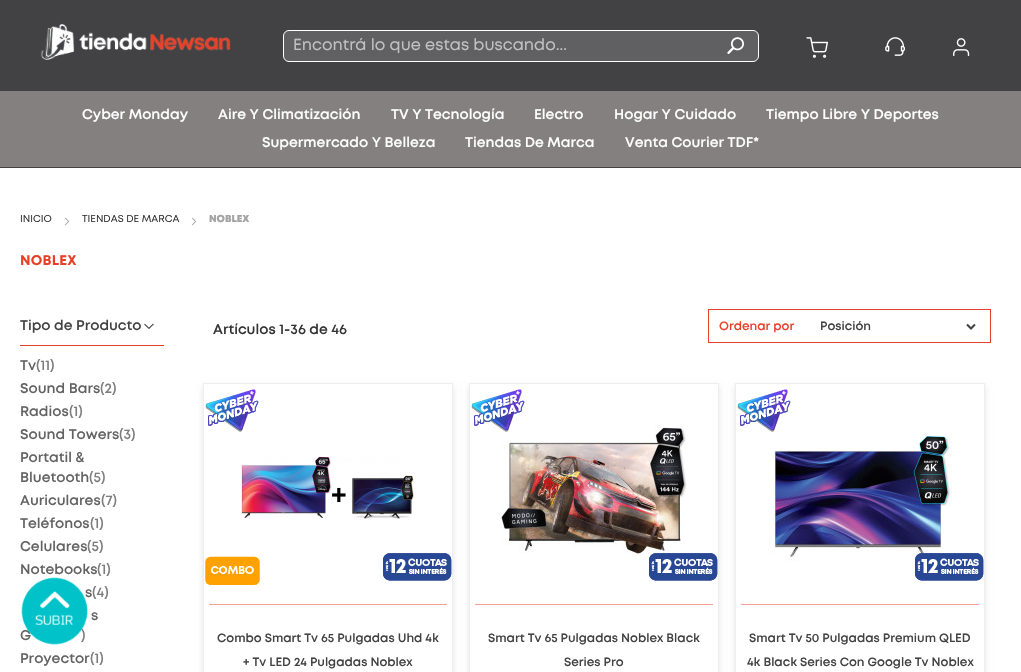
#include "include/core/SkBlurTypes.h"
#include "include/core/SkCanvas.h"
#include "include/core/SkData.h"
#include "include/core/SkFont.h"
#include "include/core/SkFontMgr.h"
#include "include/core/SkImage.h"
#include "include/core/SkMaskFilter.h"
#include "include/core/SkPaint.h"
#include "include/core/SkPathBuilder.h"
#include "include/core/SkTextBlob.h"
#include "include/effects/SkDashPathEffect.h"
#include "include/effects/SkGradientShader.h"
#include "include/utils/SkParsePath.h"

extern sk_sp<SkFontMgr> fontMgr;

void draw(SkCanvas* canvas) {
  SkPaint p;
  p.setAntiAlias(true);
  auto spacedText = [&](const char* s, float x, float y, const SkFont& font, const SkPaint& ink, float letter, float word) {
    std::vector<SkGlyphID> glyphs(font.countText(s, strlen(s), SkTextEncoding::kUTF8));
    std::vector<float> xs(glyphs.size());
    font.textToGlyphs(s, strlen(s), SkTextEncoding::kUTF8, glyphs);
    font.getXPos(glyphs, xs, x);
    float extra = 0;
    for (size_t i = 0; i < glyphs.size(); i++) {
      xs[i] += extra;
      extra += letter + word * (glyphs[i] == font.unicharToGlyph(' '));
    }
    canvas->drawTextBlob(SkTextBlob::MakeFromPosHGlyphs(glyphs, xs, y, font), 0, 0, ink);
  };
  canvas->clear(SK_ColorWHITE);
  p.setColor(SkColorSetRGB(66, 65, 67));
  canvas->drawRect(SkRect::MakeLTRB(0, 0, 1021, 91), p);
  canvas->drawImageRect(SkImages::DeferredFromEncodedData(SkData::MakeFromFileName("images/1.png")), SkRect::MakeLTRB(40, 23, 231, 60), SkSamplingOptions());
  p.setColor(SkColorSetRGB(96, 95, 97));
  canvas->drawRoundRect(SkRect::MakeLTRB(283.5f, 30.5f, 758.5f, 61.5f), 5.5f, 5.5f, p);
  p.setStyle(SkPaint::kStroke_Style);
  p.setStrokeWidth(1);
  p.setColor(SK_ColorWHITE);
  canvas->drawRoundRect(SkRect::MakeLTRB(283.5f, 30.5f, 758.5f, 61.5f), 5.5f, 5.5f, p);
  canvas->drawImageRect(SkImages::DeferredFromEncodedData(SkData::MakeFromFileName("images/2.png")), SkRect::MakeLTRB(727, 37, 744, 54), SkSamplingOptions());
  canvas->drawImageRect(SkImages::DeferredFromEncodedData(SkData::MakeFromFileName("images/3.png")), SkRect::MakeLTRB(806, 37, 828, 58), SkSamplingOptions());
  canvas->drawImageRect(SkImages::DeferredFromEncodedData(SkData::MakeFromFileName("images/4.png")), SkRect::MakeLTRB(885, 37, 905, 56), SkSamplingOptions());
  canvas->drawImageRect(SkImages::DeferredFromEncodedData(SkData::MakeFromFileName("images/5.png")), SkRect::MakeLTRB(953, 38, 970, 56), SkSamplingOptions());
  p.setStyle(SkPaint::kFill_Style);
  p.setColor(SkColorSetRGB(132, 128, 128));
  canvas->drawRect(SkRect::MakeLTRB(0, 91, 1021, 167), p);
  p.setColor(SkColorSetRGB(66, 65, 67));
  canvas->drawRect(SkRect::MakeLTRB(0, 167, 1021, 168), p);
  canvas->drawImageRect(SkImages::DeferredFromEncodedData(SkData::MakeFromFileName("images/6.png")), SkRect::MakeLTRB(64, 217, 70, 226), SkSamplingOptions());
  canvas->drawImageRect(SkImages::DeferredFromEncodedData(SkData::MakeFromFileName("images/6.png")), SkRect::MakeLTRB(191, 217, 197, 226), SkSamplingOptions());
  p.setColor(SkColorSetRGB(230, 65, 40));
  canvas->drawRect(SkRect::MakeLTRB(20, 345, 164, 346), p);
  canvas->drawImageRect(SkImages::DeferredFromEncodedData(SkData::MakeFromFileName("images/7.png")), SkRect::MakeLTRB(144, 323, 154, 329), SkSamplingOptions());
  p.setStyle(SkPaint::kStroke_Style);
  canvas->drawRect(SkRect::MakeLTRB(708.5f, 309.5f, 990.5f, 342.5f), p);
  p.setStrokeWidth(2);
  p.setColor(SkColorSetRGB(66, 65, 67));
  canvas->drawPath(SkPathBuilder().moveTo(967, 324.5f).lineTo(971, 328.5f).lineTo(975, 324.5f).detach(), p);
  canvas->save();
  canvas->clipPath(SkPathBuilder(SkPathFillType::kEvenOdd).moveTo(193, 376).lineTo(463, 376).lineTo(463, 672).lineTo(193, 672).close().moveTo(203, 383).lineTo(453, 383).lineTo(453, 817).lineTo(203, 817).close().detach(), true);
  p.setStyle(SkPaint::kFill_Style);
  p.setColor(SkColorSetARGB(26, 0, 0, 0));
  p.setMaskFilter(SkMaskFilter::MakeBlur(kNormal_SkBlurStyle, 3));
  canvas->drawRect(SkRect::MakeLTRB(203, 386, 453, 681), p);
  p.setMaskFilter(nullptr);
  canvas->restore();
  p.setStyle(SkPaint::kStroke_Style);
  p.setStrokeWidth(1);
  p.setColor(SkColorSetRGB(238, 238, 238));
  canvas->drawRect(SkRect::MakeLTRB(203.5f, 383.5f, 452.5f, 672.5f), p);
  canvas->drawImageRect(SkImages::DeferredFromEncodedData(SkData::MakeFromFileName("images/8.png")), SkRect::MakeLTRB(205, 389, 259, 432), SkSamplingOptions());
  canvas->drawImageRect(SkImages::DeferredFromEncodedData(SkData::MakeFromFileName("images/9.png")), SkRect::MakeLTRB(383, 553, 452, 581), SkSamplingOptions());
  canvas->drawImageRect(SkImages::DeferredFromEncodedData(SkData::MakeFromFileName("images/10.png")), SkRect::MakeLTRB(205, 556, 260, 585), SkSamplingOptions());
  canvas->drawImageRect(SkImages::DeferredFromEncodedData(SkData::MakeFromFileName("images/11.png")), SkRect::MakeLTRB(383, 553, 452, 581), SkSamplingOptions());
  canvas->drawImageRect(SkImages::DeferredFromEncodedData(SkData::MakeFromFileName("images/12.png")), SkRect::MakeLTRB(241, 456, 414, 519), SkSamplingOptions());
  p.setStyle(SkPaint::kFill_Style);
  p.setColor(SkColorSetRGB(243, 160, 148));
  canvas->drawRect(SkRect::MakeLTRB(209, 604, 447, 605), p);
  canvas->save();
  canvas->clipPath(SkPathBuilder(SkPathFillType::kEvenOdd).moveTo(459, 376).lineTo(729, 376).lineTo(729, 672).lineTo(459, 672).close().moveTo(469, 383).lineTo(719, 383).lineTo(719, 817).lineTo(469, 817).close().detach(), true);
  p.setColor(SkColorSetARGB(26, 0, 0, 0));
  p.setMaskFilter(SkMaskFilter::MakeBlur(kNormal_SkBlurStyle, 3));
  canvas->drawRect(SkRect::MakeLTRB(469, 386, 719, 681), p);
  p.setMaskFilter(nullptr);
  canvas->restore();
  p.setStyle(SkPaint::kStroke_Style);
  p.setColor(SkColorSetRGB(238, 238, 238));
  canvas->drawRect(SkRect::MakeLTRB(469.5f, 383.5f, 718.5f, 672.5f), p);
  canvas->drawImageRect(SkImages::DeferredFromEncodedData(SkData::MakeFromFileName("images/15.png")), SkRect::MakeLTRB(499, 426, 687, 554), SkSamplingOptions());
  canvas->drawImageRect(SkImages::DeferredFromEncodedData(SkData::MakeFromFileName("images/8.png")), SkRect::MakeLTRB(471, 389, 525, 432), SkSamplingOptions());
  canvas->drawImageRect(SkImages::DeferredFromEncodedData(SkData::MakeFromFileName("images/13.png")), SkRect::MakeLTRB(649, 553, 718, 581), SkSamplingOptions());
  canvas->drawImageRect(SkImages::DeferredFromEncodedData(SkData::MakeFromFileName("images/14.png")), SkRect::MakeLTRB(649, 553, 718, 581), SkSamplingOptions());
  p.setStyle(SkPaint::kFill_Style);
  p.setColor(SkColorSetRGB(243, 160, 148));
  canvas->drawRect(SkRect::MakeLTRB(475, 604, 713, 605), p);
  canvas->save();
  canvas->clipPath(SkPathBuilder(SkPathFillType::kEvenOdd).moveTo(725, 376).lineTo(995, 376).lineTo(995, 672).lineTo(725, 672).close().moveTo(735, 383).lineTo(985, 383).lineTo(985, 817).lineTo(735, 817).close().detach(), true);
  p.setColor(SkColorSetARGB(26, 0, 0, 0));
  p.setMaskFilter(SkMaskFilter::MakeBlur(kNormal_SkBlurStyle, 3));
  canvas->drawRect(SkRect::MakeLTRB(735, 386, 985, 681), p);
  p.setMaskFilter(nullptr);
  canvas->restore();
  p.setStyle(SkPaint::kStroke_Style);
  p.setColor(SkColorSetRGB(238, 238, 238));
  canvas->drawRect(SkRect::MakeLTRB(735.5f, 383.5f, 984.5f, 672.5f), p);
  canvas->drawImageRect(SkImages::DeferredFromEncodedData(SkData::MakeFromFileName("images/8.png")), SkRect::MakeLTRB(737, 389, 791, 432), SkSamplingOptions());
  canvas->drawImageRect(SkImages::DeferredFromEncodedData(SkData::MakeFromFileName("images/18.png")), SkRect::MakeLTRB(768, 434, 952, 562), SkSamplingOptions());
  canvas->drawImageRect(SkImages::DeferredFromEncodedData(SkData::MakeFromFileName("images/16.png")), SkRect::MakeLTRB(915, 553, 984, 581), SkSamplingOptions());
  canvas->drawImageRect(SkImages::DeferredFromEncodedData(SkData::MakeFromFileName("images/17.png")), SkRect::MakeLTRB(915, 553, 984, 581), SkSamplingOptions());
  p.setStyle(SkPaint::kFill_Style);
  p.setColor(SkColorSetRGB(243, 160, 148));
  canvas->drawRect(SkRect::MakeLTRB(741, 604, 979, 605), p);
  SkFont font1(fontMgr->matchFamilyStyle("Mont", SkFontStyle::Normal()), 16);
  font1.setSubpixel(true);
  p.setColor(SkColorSetRGB(194, 194, 194));
  canvas->drawString("Encontrá lo que estas buscando...", 293, 50, font1, p);
  SkFont font2(fontMgr->matchFamilyStyle("Mont", SkFontStyle(600, SkFontStyle::kNormal_Width, SkFontStyle::kUpright_Slant)), 14);
  font2.setSubpixel(true);
  p.setColor(SK_ColorWHITE);
  canvas->drawString("Cyber Monday", 82, 119, font2, p);
  canvas->drawString("Aire Y Climatización", 218, 119, font2, p);
  canvas->drawString("TV Y Tecnología", 391, 119, font2, p);
  canvas->drawString("Electro", 534, 119, font2, p);
  canvas->drawString("Hogar Y Cuidado", 614, 119, font2, p);
  canvas->drawString("Tiempo Libre Y Deportes", 766, 119, font2, p);
  canvas->drawString("Supermercado Y Belleza", 262, 147, font2, p);
  canvas->drawString("Tiendas De Marca", 465, 147, font2, p);
  canvas->drawString("Venta Courier TDF*", 625, 147, font2, p);
  SkFont font3(fontMgr->matchFamilyStyle("Mont", SkFontStyle::Normal()), 10);
  font3.setSubpixel(true);
  p.setColor(SkColorSetRGB(51, 51, 51));
  canvas->drawString("INICIO", 20, 222, font3, p);
  canvas->drawString("TIENDAS DE MARCA", 82, 222, font3, p);
  SkFont font4(fontMgr->matchFamilyStyle("Mont", SkFontStyle(900, SkFontStyle::kNormal_Width, SkFontStyle::kUpright_Slant)), 10);
  font4.setSubpixel(true);
  p.setColor(SkColorSetRGB(163, 163, 163));
  canvas->drawString("NOBLEX", 209, 222, font4, p);
  SkFont font5(fontMgr->matchFamilyStyle("Mont", SkFontStyle::Bold()), 14);
  font5.setSubpixel(true);
  p.setColor(SkColorSetRGB(230, 65, 40));
  spacedText("NOBLEX", 20, 265, font5, p, 0.25f, 0);
  p.setColor(SkColorSetRGB(66, 65, 67));
  canvas->drawString("Tipo de Producto", 20, 330, font2, p);
  p.setColor(SkColorSetRGB(98, 98, 98));
  canvas->drawString("Tv", 20, 370, font2, p);
  p.setColor(SkColorSetRGB(125, 125, 125));
  canvas->drawString("(11)", 36, 370, font2, p);
  p.setColor(SkColorSetRGB(98, 98, 98));
  canvas->drawString("Sound Bars", 20, 393, font2, p);
  p.setColor(SkColorSetRGB(125, 125, 125));
  canvas->drawString("(2)", 100, 393, font2, p);
  p.setColor(SkColorSetRGB(98, 98, 98));
  canvas->drawString("Radios", 20, 416, font2, p);
  p.setColor(SkColorSetRGB(125, 125, 125));
  canvas->drawString("(1)", 69, 416, font2, p);
  p.setColor(SkColorSetRGB(98, 98, 98));
  canvas->drawString("Sound Towers", 20, 439, font2, p);
  p.setColor(SkColorSetRGB(125, 125, 125));
  canvas->drawString("(3)", 119, 439, font2, p);
  p.setColor(SkColorSetRGB(98, 98, 98));
  canvas->drawString("Portatil &", 20, 462, font2, p);
  canvas->drawString("Bluetooth", 20, 482, font2, p);
  p.setColor(SkColorSetRGB(125, 125, 125));
  canvas->drawString("(5)", 89, 482, font2, p);
  p.setColor(SkColorSetRGB(98, 98, 98));
  canvas->drawString("Auriculares", 20, 505, font2, p);
  p.setColor(SkColorSetRGB(125, 125, 125));
  canvas->drawString("(7)", 101, 505, font2, p);
  p.setColor(SkColorSetRGB(98, 98, 98));
  canvas->drawString("Teléfonos", 20, 528, font2, p);
  p.setColor(SkColorSetRGB(125, 125, 125));
  canvas->drawString("(1)", 90, 528, font2, p);
  p.setColor(SkColorSetRGB(98, 98, 98));
  canvas->drawString("Celulares", 20, 551, font2, p);
  p.setColor(SkColorSetRGB(125, 125, 125));
  canvas->drawString("(5)", 87, 551, font2, p);
  p.setColor(SkColorSetRGB(98, 98, 98));
  canvas->drawString("Notebooks", 20, 574, font2, p);
  p.setColor(SkColorSetRGB(125, 125, 125));
  canvas->drawString("(1)", 97, 574, font2, p);
  p.setColor(SkColorSetRGB(98, 98, 98));
  canvas->drawString("s", 85, 597, font2, p);
  p.setColor(SkColorSetRGB(125, 125, 125));
  canvas->drawString("(4)", 92, 597, font2, p);
  p.setColor(SkColorSetRGB(98, 98, 98));
  canvas->drawString("s", 91, 620, font2, p);
  canvas->drawString("G", 20, 640, font2, p);
  p.setColor(SkColorSetRGB(125, 125, 125));
  canvas->drawString(")", 81, 640, font2, p);
  p.setColor(SkColorSetRGB(98, 98, 98));
  canvas->drawString("Proyector", 20, 663, font2, p);
  p.setColor(SkColorSetRGB(125, 125, 125));
  canvas->drawString("(1)", 90, 663, font2, p);
  p.setColor(SkColorSetRGB(51, 51, 51));
  canvas->drawString("Artículos 1-36 de 46", 213, 334, font2, p);
  SkFont font6(fontMgr->matchFamilyStyle("Mont", SkFontStyle(600, SkFontStyle::kNormal_Width, SkFontStyle::kUpright_Slant)), 12);
  font6.setSubpixel(true);
  p.setColor(SkColorSetRGB(230, 65, 40));
  canvas->drawString("Ordenar por", 719, 330, font6, p);
  p.setColor(SkColorSetRGB(66, 65, 67));
  canvas->drawString("Posición", 820, 330, font6, p);
  canvas->drawString("Combo Smart Tv 65 Pulgadas Uhd 4k", 217, 642, font6, p);
  canvas->drawString("+ Tv LED 24 Pulgadas Noblex", 243, 666, font6, p);
  canvas->drawString("Smart Tv 65 Pulgadas Noblex Black", 488, 642, font6, p);
  canvas->drawString("Series Pro", 564, 666, font6, p);
  canvas->drawString("Smart Tv 50 Pulgadas Premium QLED", 749, 642, font6, p);
  canvas->drawString("4k Black Series Con Google Tv Noblex", 747, 666, font6, p);
  canvas->drawImageRect(SkImages::DeferredFromEncodedData(SkData::MakeFromFileName("images/19.png")), SkRect::MakeLTRB(21, 577, 88, 645), SkSamplingOptions());
}
